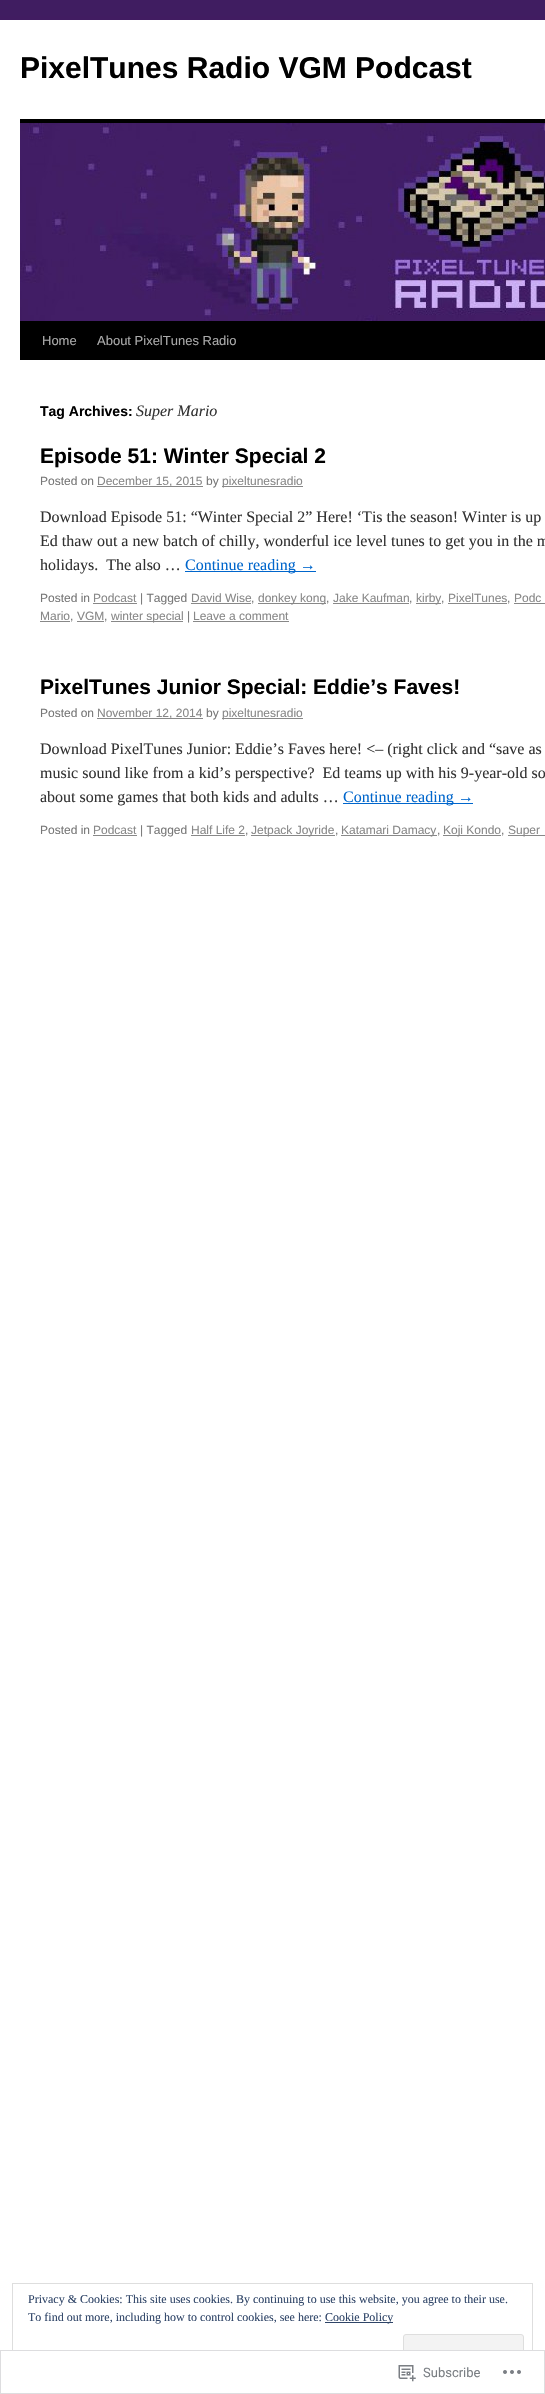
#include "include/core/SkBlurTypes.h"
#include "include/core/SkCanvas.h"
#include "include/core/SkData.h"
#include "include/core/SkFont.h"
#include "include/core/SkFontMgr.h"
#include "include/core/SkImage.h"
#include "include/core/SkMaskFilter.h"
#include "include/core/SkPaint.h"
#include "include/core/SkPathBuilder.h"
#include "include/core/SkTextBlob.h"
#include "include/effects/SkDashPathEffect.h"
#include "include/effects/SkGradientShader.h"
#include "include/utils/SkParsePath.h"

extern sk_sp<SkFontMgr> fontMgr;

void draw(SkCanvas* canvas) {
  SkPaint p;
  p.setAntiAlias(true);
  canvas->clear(SK_ColorWHITE);
  canvas->drawImageRect(SkImages::DeferredFromEncodedData(SkData::MakeFromFileName("images/1.png")), SkRect::MakeLTRB(0, 0, 545, 20), SkSamplingOptions());
  p.setColor(SK_ColorBLACK);
  canvas->drawRect(SkRect::MakeLTRB(20, 119, 545, 123), p);
  canvas->drawRect(SkRect::MakeLTRB(20, 321, 545, 360), p);
  canvas->drawImageRect(SkImages::DeferredFromEncodedData(SkData::MakeFromFileName("images/2.png")), SkRect::MakeLTRB(20, 123, 545, 321), SkSamplingOptions());
  p.setColor(SkColorSetRGB(136, 136, 136));
  canvas->drawRect(SkRect::MakeLTRB(97, 486, 203, 487), p);
  canvas->drawRect(SkRect::MakeLTRB(222, 486, 303, 487), p);
  p.setColor(SkColorSetRGB(0, 102, 204));
  canvas->drawRect(SkRect::MakeLTRB(185, 571, 316, 572), p);
  p.setColor(SkColorSetRGB(136, 136, 136));
  canvas->drawRect(SkRect::MakeLTRB(93, 603, 137, 604), p);
  canvas->drawRect(SkRect::MakeLTRB(191, 603, 251, 604), p);
  canvas->drawRect(SkRect::MakeLTRB(258, 603, 326, 604), p);
  canvas->drawRect(SkRect::MakeLTRB(333, 603, 409, 604), p);
  canvas->drawRect(SkRect::MakeLTRB(416, 603, 441, 604), p);
  canvas->drawRect(SkRect::MakeLTRB(448, 603, 507, 604), p);
  canvas->drawRect(SkRect::MakeLTRB(514, 603, 545, 604), p);
  canvas->drawRect(SkRect::MakeLTRB(40, 621, 70, 622), p);
  canvas->drawRect(SkRect::MakeLTRB(77, 621, 104, 622), p);
  canvas->drawRect(SkRect::MakeLTRB(111, 621, 183, 622), p);
  canvas->drawRect(SkRect::MakeLTRB(193, 621, 289, 622), p);
  canvas->drawRect(SkRect::MakeLTRB(97, 718, 203, 719), p);
  canvas->drawRect(SkRect::MakeLTRB(222, 718, 303, 719), p);
  p.setColor(SkColorSetRGB(0, 102, 204));
  canvas->drawRect(SkRect::MakeLTRB(343, 803, 473, 804), p);
  p.setColor(SkColorSetRGB(136, 136, 136));
  canvas->drawRect(SkRect::MakeLTRB(93, 835, 137, 836), p);
  canvas->drawRect(SkRect::MakeLTRB(191, 835, 245, 836), p);
  canvas->drawRect(SkRect::MakeLTRB(251, 835, 335, 836), p);
  canvas->drawRect(SkRect::MakeLTRB(341, 835, 437, 836), p);
  canvas->drawRect(SkRect::MakeLTRB(443, 835, 501, 836), p);
  canvas->drawRect(SkRect::MakeLTRB(508, 835, 545, 836), p);
  p.setStyle(SkPaint::kStroke_Style);
  p.setStrokeWidth(1);
  p.setColor(SkColorSetRGB(222, 222, 222));
  canvas->drawRect(SkRect::MakeLTRB(12.5f, 2283.5f, 532.5f, 2381.5f), p);
  p.setStyle(SkPaint::kFill_Style);
  p.setColor(SkColorSetRGB(46, 68, 103));
  canvas->drawRect(SkRect::MakeLTRB(325, 2322, 393, 2323), p);
  p.setColor(SkColorSetRGB(243, 243, 243));
  canvas->drawRoundRect(SkRect::MakeLTRB(403.5f, 2334.5f, 523.5f, 2372.5f), 2.5f, 2.5f, p);
  p.setStyle(SkPaint::kStroke_Style);
  p.setColor(SkColorSetRGB(222, 222, 222));
  canvas->drawRoundRect(SkRect::MakeLTRB(403.5f, 2334.5f, 523.5f, 2372.5f), 2.5f, 2.5f, p);
  p.setStyle(SkPaint::kFill_Style);
  p.setColor(SkColorSetARGB(250, 255, 255, 255));
  canvas->drawRect(SkRect::MakeLTRB(12, 2350, 533, 2382), p);
  p.setStyle(SkPaint::kStroke_Style);
  p.setColor(SkColorSetARGB(250, 220, 220, 222));
  canvas->drawRect(SkRect::MakeLTRB(0.5f, 2350.5f, 544.5f, 2393.5f), p);
  canvas->drawImageRect(SkImages::DeferredFromEncodedData(SkData::MakeFromFileName("images/3.png")), SkRect::MakeLTRB(398, 2365, 416, 2382), SkSamplingOptions());
  canvas->drawImageRect(SkImages::DeferredFromEncodedData(SkData::MakeFromFileName("images/4.png")), SkRect::MakeLTRB(503, 2370, 521, 2374), SkSamplingOptions());
  SkFont font1(fontMgr->matchFamilyStyle("Liberation Sans", SkFontStyle::Bold()), 30);
  font1.setSubpixel(true);
  p.setStyle(SkPaint::kFill_Style);
  p.setColor(SK_ColorBLACK);
  canvas->drawString("PixelTunes Radio VGM Podcast", 20, 78, font1, p);
  SkFont font2(fontMgr->matchFamilyStyle("Liberation Sans", SkFontStyle::Normal()), 13);
  font2.setSubpixel(true);
  p.setColor(SkColorSetRGB(170, 170, 170));
  canvas->drawString("Home", 42, 345, font2, p);
  canvas->drawString("About PixelTunes Radio", 97, 345, font2, p);
  SkFont font3(fontMgr->matchFamilyStyle("Liberation Sans", SkFontStyle::Bold()), 14);
  font3.setSubpixel(true);
  p.setColor(SK_ColorBLACK);
  canvas->drawString("Tag Archives:", 40, 416, font3, p);
  SkFont font4(fontMgr->matchFamilyStyle("Liberation Serif", SkFontStyle::Italic()), 16);
  font4.setSubpixel(true);
  p.setColor(SkColorSetRGB(51, 51, 51));
  canvas->drawString("Super Mario", 136, 416, font4, p);
  SkFont font5(fontMgr->matchFamilyStyle("Liberation Sans", SkFontStyle::Bold()), 21);
  font5.setSubpixel(true);
  p.setColor(SK_ColorBLACK);
  canvas->drawString("Episode 51: Winter Special 2", 40, 463, font5, p);
  SkFont font6(fontMgr->matchFamilyStyle("Liberation Sans", SkFontStyle::Normal()), 12);
  font6.setSubpixel(true);
  p.setColor(SkColorSetRGB(119, 119, 119));
  canvas->drawString("Posted on", 40, 485, font6, p);
  p.setColor(SkColorSetRGB(136, 136, 136));
  canvas->drawString("December 15, 2015", 97, 485, font6, p);
  p.setColor(SkColorSetRGB(119, 119, 119));
  canvas->drawString("by", 206, 485, font6, p);
  p.setColor(SkColorSetRGB(136, 136, 136));
  canvas->drawString("pixeltunesradio", 222, 485, font6, p);
  SkFont font7(fontMgr->matchFamilyStyle("Liberation Serif", SkFontStyle::Normal()), 16);
  font7.setSubpixel(true);
  p.setColor(SkColorSetRGB(51, 51, 51));
  canvas->drawString("Download Episode 51: “Winter Special 2” Here! ‘Tis the season! Winter is up", 40, 522, font7, p);
  canvas->drawString("Ed thaw out a new batch of chilly, wonderful ice level tunes to get you in the m", 40, 546, font7, p);
  canvas->drawString("holidays.  The also …", 40, 570, font7, p);
  p.setColor(SkColorSetRGB(0, 102, 204));
  canvas->drawString("Continue reading →", 185, 570, font7, p);
  p.setColor(SkColorSetRGB(119, 119, 119));
  canvas->drawString("Posted in", 40, 602, font6, p);
  p.setColor(SkColorSetRGB(136, 136, 136));
  canvas->drawString("Podcast", 93, 602, font6, p);
  p.setColor(SkColorSetRGB(119, 119, 119));
  canvas->drawString("| Tagged", 140, 602, font6, p);
  p.setColor(SkColorSetRGB(136, 136, 136));
  canvas->drawString("David Wise", 191, 602, font6, p);
  p.setColor(SkColorSetRGB(119, 119, 119));
  canvas->drawString(",", 251, 602, font6, p);
  p.setColor(SkColorSetRGB(136, 136, 136));
  canvas->drawString("donkey kong", 258, 602, font6, p);
  p.setColor(SkColorSetRGB(119, 119, 119));
  canvas->drawString(",", 326, 602, font6, p);
  p.setColor(SkColorSetRGB(136, 136, 136));
  canvas->drawString("Jake Kaufman", 333, 602, font6, p);
  p.setColor(SkColorSetRGB(119, 119, 119));
  canvas->drawString(",", 409, 602, font6, p);
  p.setColor(SkColorSetRGB(136, 136, 136));
  canvas->drawString("kirby", 416, 602, font6, p);
  p.setColor(SkColorSetRGB(119, 119, 119));
  canvas->drawString(",", 441, 602, font6, p);
  p.setColor(SkColorSetRGB(136, 136, 136));
  canvas->drawString("PixelTunes", 448, 602, font6, p);
  p.setColor(SkColorSetRGB(119, 119, 119));
  canvas->drawString(",", 507, 602, font6, p);
  p.setColor(SkColorSetRGB(136, 136, 136));
  canvas->drawString("Podc", 514, 602, font6, p);
  canvas->drawString("Mario", 40, 620, font6, p);
  p.setColor(SkColorSetRGB(119, 119, 119));
  canvas->drawString(",", 70, 620, font6, p);
  p.setColor(SkColorSetRGB(136, 136, 136));
  canvas->drawString("VGM", 77, 620, font6, p);
  p.setColor(SkColorSetRGB(119, 119, 119));
  canvas->drawString(",", 104, 620, font6, p);
  p.setColor(SkColorSetRGB(136, 136, 136));
  canvas->drawString("winter special", 111, 620, font6, p);
  p.setColor(SkColorSetRGB(119, 119, 119));
  canvas->drawString("|", 187, 620, font6, p);
  p.setColor(SkColorSetRGB(136, 136, 136));
  canvas->drawString("Leave a comment", 193, 620, font6, p);
  p.setColor(SK_ColorBLACK);
  canvas->drawString("PixelTunes Junior Special: Eddie’s Faves!", 40, 694, font5, p);
  p.setColor(SkColorSetRGB(119, 119, 119));
  canvas->drawString("Posted on", 40, 717, font6, p);
  p.setColor(SkColorSetRGB(136, 136, 136));
  canvas->drawString("November 12, 2014", 97, 717, font6, p);
  p.setColor(SkColorSetRGB(119, 119, 119));
  canvas->drawString("by", 206, 717, font6, p);
  p.setColor(SkColorSetRGB(136, 136, 136));
  canvas->drawString("pixeltunesradio", 222, 717, font6, p);
  p.setColor(SkColorSetRGB(51, 51, 51));
  canvas->drawString("Download PixelTunes Junior: Eddie’s Faves here! <– (right click and “save as", 40, 754, font7, p);
  canvas->drawString("music sound like from a kid’s perspective?  Ed teams up with his 9-year-old so", 40, 778, font7, p);
  canvas->drawString("about some games that both kids and adults …", 40, 802, font7, p);
  p.setColor(SkColorSetRGB(0, 102, 204));
  canvas->drawString("Continue reading →", 343, 802, font7, p);
  p.setColor(SkColorSetRGB(119, 119, 119));
  canvas->drawString("Posted in", 40, 834, font6, p);
  p.setColor(SkColorSetRGB(136, 136, 136));
  canvas->drawString("Podcast", 93, 834, font6, p);
  p.setColor(SkColorSetRGB(119, 119, 119));
  canvas->drawString("| Tagged", 140, 834, font6, p);
  p.setColor(SkColorSetRGB(136, 136, 136));
  canvas->drawString("Half Life 2", 191, 834, font6, p);
  p.setColor(SkColorSetRGB(119, 119, 119));
  canvas->drawString(",", 245, 834, font6, p);
  p.setColor(SkColorSetRGB(136, 136, 136));
  canvas->drawString("Jetpack Joyride", 251, 834, font6, p);
  p.setColor(SkColorSetRGB(119, 119, 119));
  canvas->drawString(",", 335, 834, font6, p);
  p.setColor(SkColorSetRGB(136, 136, 136));
  canvas->drawString("Katamari Damacy", 341, 834, font6, p);
  p.setColor(SkColorSetRGB(119, 119, 119));
  canvas->drawString(",", 437, 834, font6, p);
  p.setColor(SkColorSetRGB(136, 136, 136));
  canvas->drawString("Koji Kondo", 443, 834, font6, p);
  p.setColor(SkColorSetRGB(119, 119, 119));
  canvas->drawString(",", 501, 834, font6, p);
  p.setColor(SkColorSetRGB(136, 136, 136));
  canvas->drawString("Super", 508, 834, font6, p);
  SkFont font8(fontMgr->matchFamilyStyle("Liberation Serif", SkFontStyle::Normal()), 12);
  font8.setSubpixel(true);
  p.setColor(SkColorSetRGB(46, 68, 103));
  canvas->drawString("Privacy & Cookies: This site uses cookies. By continuing to use this website, you agree to their use.", 28, 2303, font8, p);
  canvas->drawString("To find out more, including how to control cookies, see here:", 28, 2321, font8, p);
  canvas->drawString("Cookie Policy", 325, 2321, font8, p);
  SkFont font9(fontMgr->matchFamilyStyle("Roboto", SkFontStyle::Normal()), 13);
  font9.setSubpixel(true);
  p.setColor(SkColorSetRGB(123, 127, 132));
  canvas->drawString("Subscribe", 423, 2377, font9, p);
}
